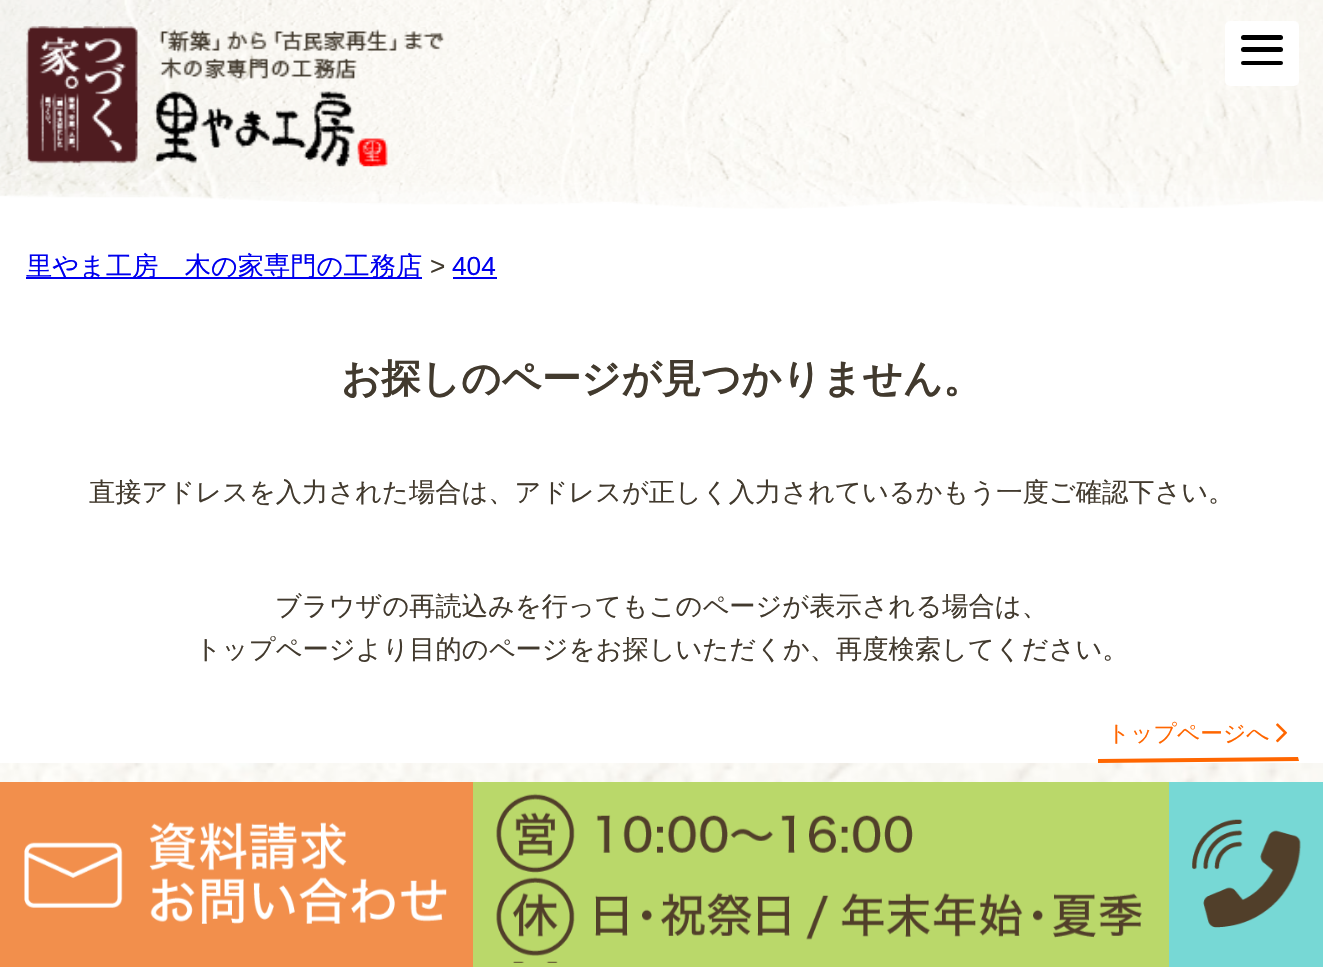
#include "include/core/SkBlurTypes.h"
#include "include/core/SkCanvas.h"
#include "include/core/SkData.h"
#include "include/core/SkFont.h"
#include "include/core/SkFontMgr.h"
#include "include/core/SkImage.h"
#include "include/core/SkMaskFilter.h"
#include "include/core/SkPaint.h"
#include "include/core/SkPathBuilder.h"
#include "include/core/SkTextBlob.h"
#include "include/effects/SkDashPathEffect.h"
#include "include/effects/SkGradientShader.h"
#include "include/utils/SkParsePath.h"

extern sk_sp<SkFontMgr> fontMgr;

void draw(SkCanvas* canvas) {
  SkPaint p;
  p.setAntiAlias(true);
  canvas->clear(SK_ColorWHITE);
  canvas->drawImageRect(SkImages::DeferredFromEncodedData(SkData::MakeFromFileName("images/1.png")), SkRect::MakeLTRB(0, 0, 1323, 209), SkSamplingOptions());
  p.setColor(SK_ColorWHITE);
  canvas->drawRoundRect(SkRect::MakeLTRB(1225, 21, 1299, 86), 5, 5, p);
  p.setColor(SK_ColorBLACK);
  canvas->drawRoundRect(SkRect::MakeLTRB(1241, 47, 1283, 52), 2.5f, 2.5f, p);
  canvas->drawRoundRect(SkRect::MakeLTRB(1241, 35, 1283, 40), 2.5f, 2.5f, p);
  canvas->drawRoundRect(SkRect::MakeLTRB(1241, 61, 1283, 65), 2, 2, p);
  canvas->drawImageRect(SkImages::DeferredFromEncodedData(SkData::MakeFromFileName("images/2.png")), SkRect::MakeLTRB(26, 26, 445, 167), SkSamplingOptions());
  p.setColor(SkColorSetRGB(0, 0, 238));
  canvas->drawRect(SkRect::MakeLTRB(26, 277, 422, 279), p);
  canvas->drawRect(SkRect::MakeLTRB(453, 277, 497, 279), p);
  canvas->drawImageRect(SkImages::DeferredFromEncodedData(SkData::MakeFromFileName("images/3.png")), SkRect::MakeLTRB(1276, 723, 1287, 743), SkSamplingOptions());
  p.setColor(SkColorSetRGB(255, 102, 0));
  canvas->drawPath(SkPathBuilder().moveTo(1098, 759).lineTo(1298, 757).lineTo(1299, 761).lineTo(1098, 763).close().detach(), p);
  canvas->drawImageRect(SkImages::DeferredFromEncodedData(SkData::MakeFromFileName("images/4.png")), SkRect::MakeLTRB(0, 763, 1323, 782), SkSamplingOptions());
  p.setColor(SkColorSetRGB(242, 143, 76));
  canvas->drawRect(SkRect::MakeLTRB(0, 782, 473, 967), p);
  canvas->drawImageRect(SkImages::DeferredFromEncodedData(SkData::MakeFromFileName("images/5.png")), SkRect::MakeLTRB(24, 821, 447, 924), SkSamplingOptions());
  p.setColor(SkColorSetRGB(186, 216, 106));
  canvas->drawRect(SkRect::MakeLTRB(473, 782, 1169, 967), p);
  canvas->drawImageRect(SkImages::DeferredFromEncodedData(SkData::MakeFromFileName("images/6.png")), SkRect::MakeLTRB(496, 793, 1142, 963), SkSamplingOptions());
  p.setColor(SkColorSetRGB(119, 216, 213));
  canvas->drawRect(SkRect::MakeLTRB(1169, 782, 1323, 967), p);
  canvas->drawImageRect(SkImages::DeferredFromEncodedData(SkData::MakeFromFileName("images/7.png")), SkRect::MakeLTRB(1192, 819, 1301, 928), SkSamplingOptions());
  SkFont font1(fontMgr->matchFamilyStyle("WenQuanYi Zen Hei", SkFontStyle(500, SkFontStyle::kNormal_Width, SkFontStyle::kUpright_Slant)), 26.25f);
  font1.setSubpixel(true);
  p.setColor(SkColorSetRGB(0, 0, 238));
  canvas->drawString("里やま工房　木の家専門の工務店", 26, 275, font1, p);
  SkFont font2(fontMgr->matchFamilyStyle("Liberation Sans", SkFontStyle::Normal()), 26.25f);
  font2.setSubpixel(true);
  p.setColor(SkColorSetRGB(66, 58, 46));
  canvas->drawString(">", 430, 275, font2, p);
  p.setColor(SkColorSetRGB(0, 0, 238));
  canvas->drawString("404", 452, 275, font2, p);
  SkFont font3(fontMgr->matchFamilyStyle("WenQuanYi Zen Hei", SkFontStyle::Bold()), 39.4f);
  font3.setSubpixel(true);
  p.setColor(SkColorSetRGB(66, 58, 46));
  canvas->drawString("お探しのページが見つかりません。", 341, 392, font3, p);
  canvas->drawString("直接アドレスを入力された場合は、アドレスが正しく入力されているかもう一度ご確認下さい。", 89, 501, font1, p);
  canvas->drawString("ブラウザの再読込みを行ってもこのページが表示される場合は、", 275, 615, font1, p);
  canvas->drawString("トップページより目的のページをお探しいただくか、再度検索してください。", 195, 658, font1, p);
  SkFont font4(fontMgr->matchFamilyStyle("WenQuanYi Zen Hei", SkFontStyle(500, SkFontStyle::kNormal_Width, SkFontStyle::kUpright_Slant)), 22.75f);
  font4.setSubpixel(true);
  p.setColor(SkColorSetRGB(255, 102, 0));
  canvas->drawString("トップページへ", 1107, 741, font4, p);
}
